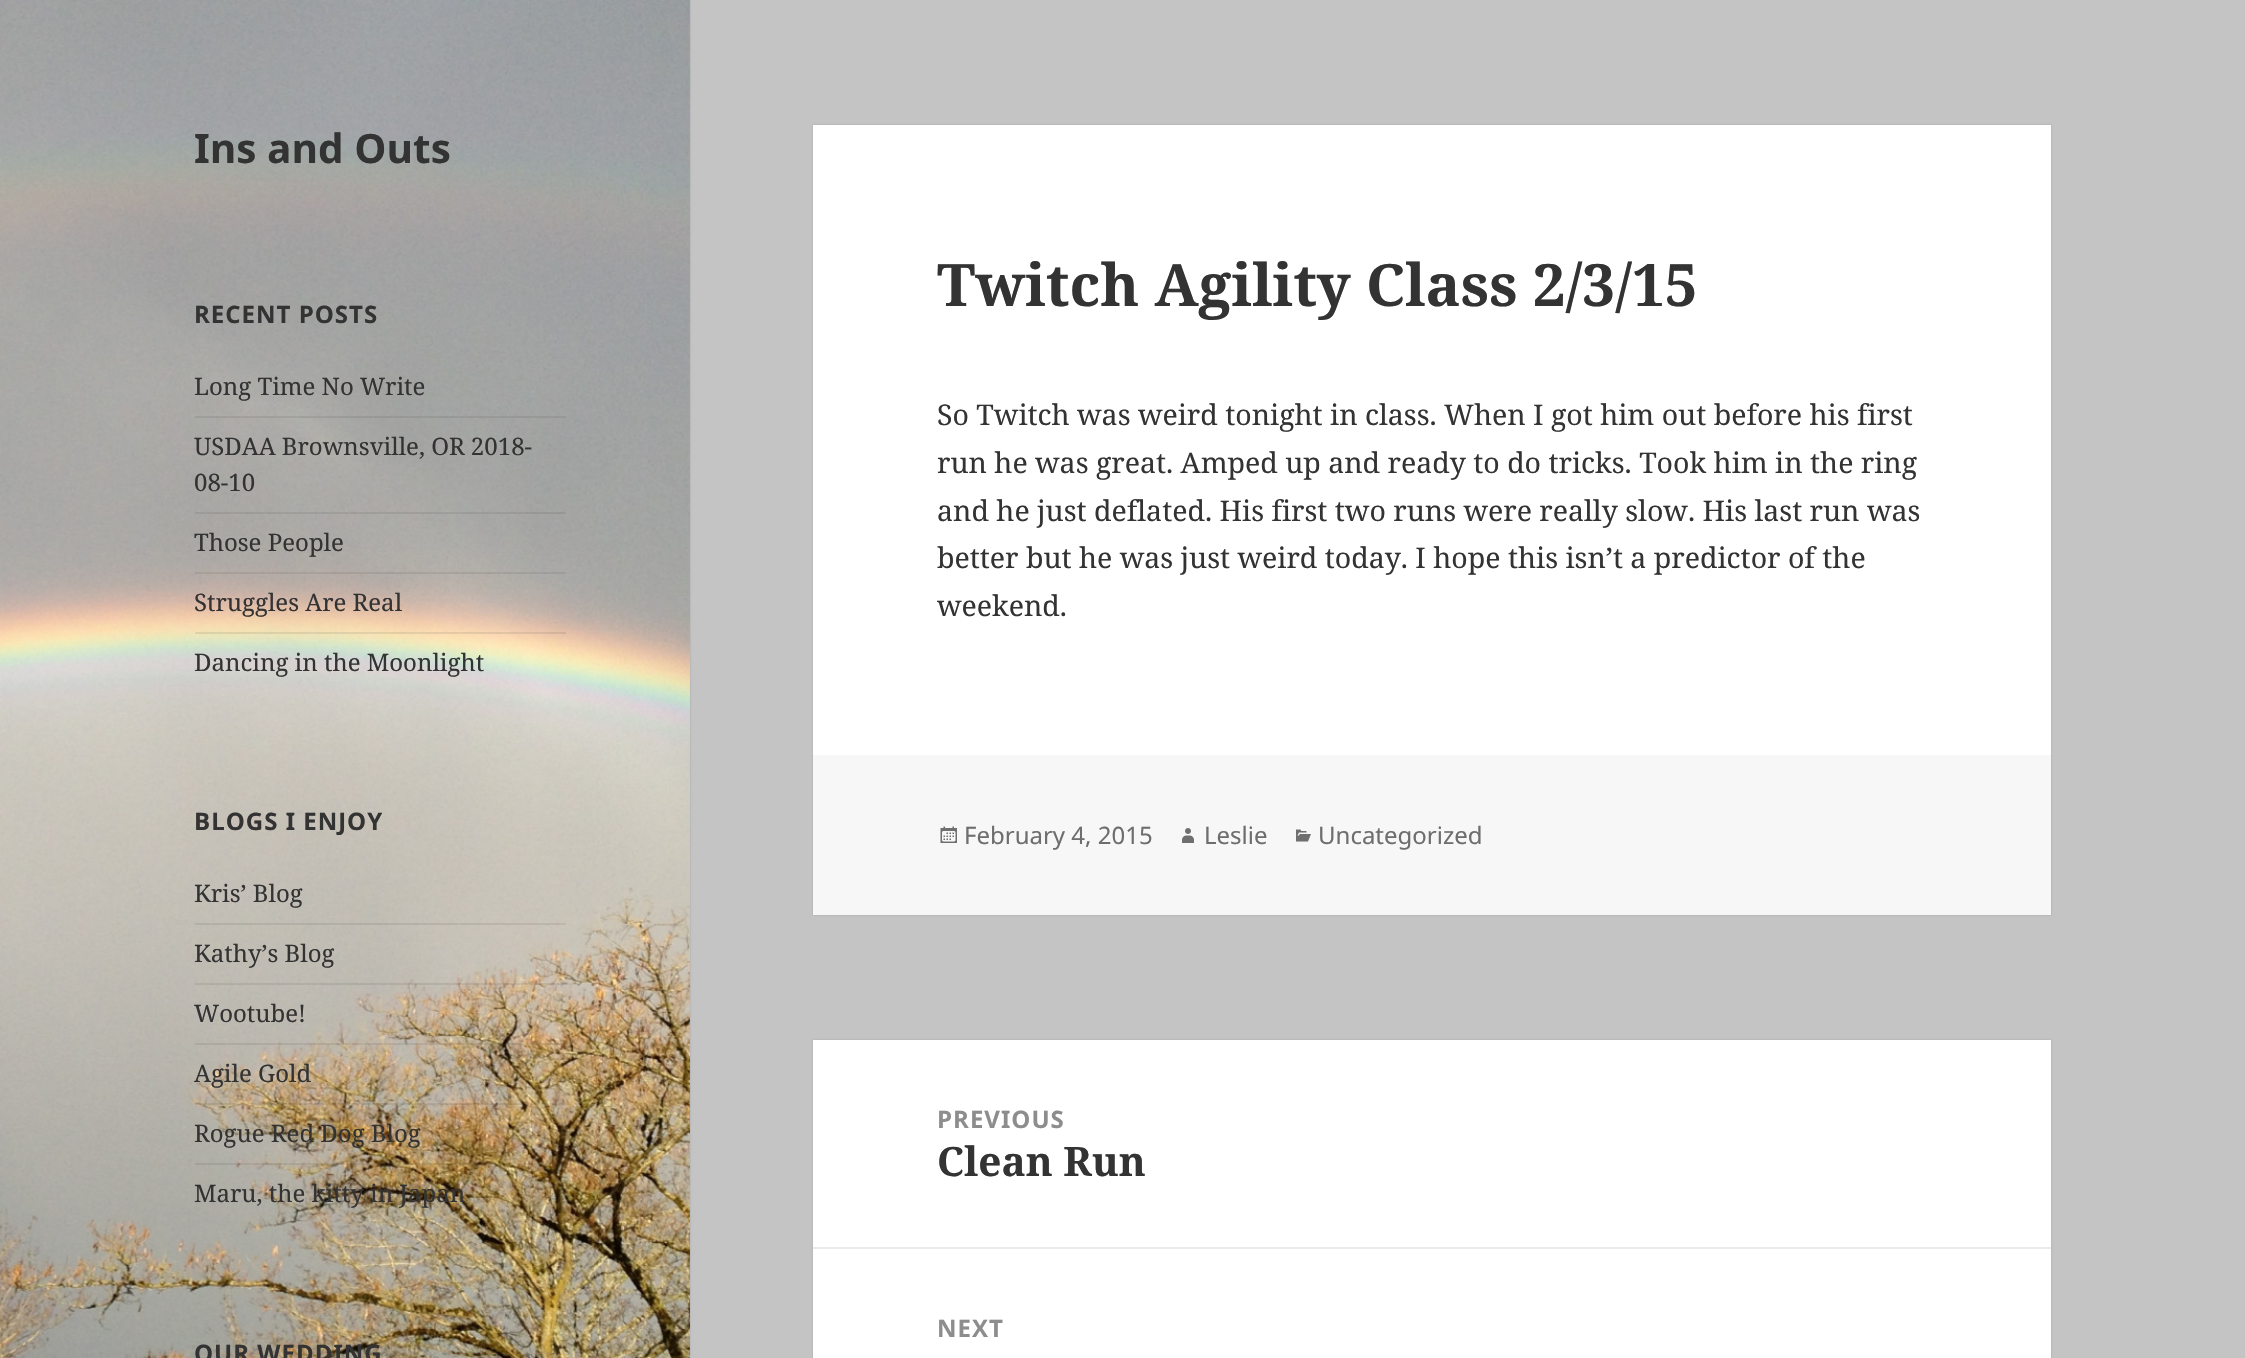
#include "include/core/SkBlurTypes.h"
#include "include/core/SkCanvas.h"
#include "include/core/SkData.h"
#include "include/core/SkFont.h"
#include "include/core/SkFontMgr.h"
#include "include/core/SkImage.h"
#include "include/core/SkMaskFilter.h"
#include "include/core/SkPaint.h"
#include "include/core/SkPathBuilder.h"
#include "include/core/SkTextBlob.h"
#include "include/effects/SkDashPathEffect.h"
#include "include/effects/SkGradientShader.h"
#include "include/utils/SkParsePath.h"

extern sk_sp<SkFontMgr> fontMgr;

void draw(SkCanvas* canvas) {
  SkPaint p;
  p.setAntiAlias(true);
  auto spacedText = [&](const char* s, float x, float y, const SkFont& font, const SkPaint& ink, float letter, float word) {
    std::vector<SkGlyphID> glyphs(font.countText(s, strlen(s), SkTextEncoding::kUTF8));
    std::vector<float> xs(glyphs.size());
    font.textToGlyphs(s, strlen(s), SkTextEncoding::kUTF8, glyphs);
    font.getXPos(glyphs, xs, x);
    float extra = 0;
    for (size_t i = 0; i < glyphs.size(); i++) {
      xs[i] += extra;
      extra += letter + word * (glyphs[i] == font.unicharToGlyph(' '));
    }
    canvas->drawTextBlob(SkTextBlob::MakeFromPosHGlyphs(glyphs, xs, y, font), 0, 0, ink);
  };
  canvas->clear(SkColorSetRGB(196, 196, 196));
  p.setColor(SkColorSetARGB(38, 0, 0, 0));
  p.setMaskFilter(SkMaskFilter::MakeBlur(kNormal_SkBlurStyle, 1));
  canvas->drawRect(SkRect::MakeLTRB(0, 0, 690, 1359), p);
  p.setMaskFilter(nullptr);
  canvas->drawImageRect(SkImages::DeferredFromEncodedData(SkData::MakeFromFileName("images/1.png")), SkRect::MakeLTRB(0, 0, 690, 1358), SkSamplingOptions());
  p.setColor(SkColorSetARGB(26, 51, 51, 51));
  canvas->drawRect(SkRect::MakeLTRB(195, 416, 566, 418), p);
  canvas->drawRect(SkRect::MakeLTRB(195, 512, 566, 514), p);
  canvas->drawRect(SkRect::MakeLTRB(195, 572, 566, 574), p);
  canvas->drawRect(SkRect::MakeLTRB(195, 632, 566, 634), p);
  canvas->drawRect(SkRect::MakeLTRB(195, 923, 566, 925), p);
  canvas->drawRect(SkRect::MakeLTRB(195, 983, 566, 985), p);
  canvas->drawRect(SkRect::MakeLTRB(195, 1043, 566, 1045), p);
  canvas->drawRect(SkRect::MakeLTRB(195, 1103, 566, 1105), p);
  canvas->drawRect(SkRect::MakeLTRB(195, 1163, 566, 1165), p);
  p.setColor(SkColorSetARGB(38, 0, 0, 0));
  p.setMaskFilter(SkMaskFilter::MakeBlur(kNormal_SkBlurStyle, 1));
  canvas->drawRect(SkRect::MakeLTRB(813, 125, 2051, 915), p);
  p.setMaskFilter(nullptr);
  p.setColor(SK_ColorWHITE);
  canvas->drawRect(SkRect::MakeLTRB(813, 125, 2051, 755), p);
  p.setColor(SkColorSetRGB(247, 247, 247));
  canvas->drawRect(SkRect::MakeLTRB(813, 755, 2051, 915), p);
  canvas->drawImageRect(SkImages::DeferredFromEncodedData(SkData::MakeFromFileName("images/2.png")), SkRect::MakeLTRB(940, 826, 957, 843), SkSamplingOptions());
  canvas->drawImageRect(SkImages::DeferredFromEncodedData(SkData::MakeFromFileName("images/3.png")), SkRect::MakeLTRB(1182, 828, 1194, 843), SkSamplingOptions());
  canvas->drawImageRect(SkImages::DeferredFromEncodedData(SkData::MakeFromFileName("images/4.png")), SkRect::MakeLTRB(1296, 829, 1311, 842), SkSamplingOptions());
  p.setColor(SkColorSetARGB(38, 0, 0, 0));
  p.setMaskFilter(SkMaskFilter::MakeBlur(kNormal_SkBlurStyle, 1));
  canvas->drawRect(SkRect::MakeLTRB(813, 1040, 2051, 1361), p);
  p.setMaskFilter(nullptr);
  p.setColor(SK_ColorWHITE);
  canvas->drawRect(SkRect::MakeLTRB(813, 1040, 2051, 1358), p);
  p.setColor(SkColorSetRGB(235, 235, 235));
  canvas->drawRect(SkRect::MakeLTRB(813, 1247, 2051, 1249), p);
  SkFont font1(fontMgr->matchFamilyStyle("Noto Sans", SkFontStyle::Bold()), 40.5f);
  font1.setSubpixel(true);
  p.setColor(SkColorSetRGB(51, 51, 51));
  canvas->drawString("Ins and Outs", 194, 163, font1, p);
  SkFont font2(fontMgr->matchFamilyStyle("Noto Sans", SkFontStyle::Bold()), 24);
  font2.setSubpixel(true);
  spacedText("RECENT POSTS", 194, 323, font2, p, 1, 0);
  SkFont font3(fontMgr->matchFamilyStyle("Noto Serif", SkFontStyle::Normal()), 24);
  font3.setSubpixel(true);
  canvas->drawString("Long Time No Write", 194, 395, font3, p);
  canvas->drawString("USDAA Brownsville, OR 2018-", 194, 455, font3, p);
  canvas->drawString("08-10", 194, 491, font3, p);
  canvas->drawString("Those People", 194, 551, font3, p);
  canvas->drawString("Struggles Are Real", 194, 611, font3, p);
  canvas->drawString("Dancing in the Moonlight", 194, 671, font3, p);
  spacedText("BLOGS I ENJOY", 194, 830, font2, p, 1, 0);
  canvas->drawString("Kris’ Blog", 194, 902, font3, p);
  canvas->drawString("Kathy’s Blog", 194, 962, font3, p);
  canvas->drawString("Wootube!", 194, 1022, font3, p);
  canvas->drawString("Agile Gold", 194, 1082, font3, p);
  canvas->drawString("Rogue Red Dog Blog", 194, 1142, font3, p);
  canvas->drawString("Maru, the kitty in Japan", 194, 1202, font3, p);
  spacedText("OUR WEDDING", 194, 1362, font2, p, 1, 0);
  SkFont font4(fontMgr->matchFamilyStyle("Noto Serif", SkFontStyle::Bold()), 58.5f);
  font4.setSubpixel(true);
  canvas->drawString("Twitch Agility Class 2/3/15", 937, 306, font4, p);
  SkFont font5(fontMgr->matchFamilyStyle("Noto Serif", SkFontStyle::Normal()), 28.5f);
  font5.setSubpixel(true);
  canvas->drawString("So Twitch was weird tonight in class. When I got him out before his first", 937, 425, font5, p);
  canvas->drawString("run he was great. Amped up and ready to do tricks. Took him in the ring", 937, 473, font5, p);
  canvas->drawString("and he just deflated. His first two runs were really slow. His last run was", 937, 521, font5, p);
  canvas->drawString("better but he was just weird today. I hope this isn’t a predictor of the", 937, 568, font5, p);
  canvas->drawString("weekend.", 937, 616, font5, p);
  SkFont font6(fontMgr->matchFamilyStyle("Noto Sans", SkFontStyle::Normal()), 24);
  font6.setSubpixel(true);
  p.setColor(SkColorSetRGB(110, 110, 110));
  canvas->drawString("February 4, 2015", 964, 844, font6, p);
  canvas->drawString("Leslie", 1204, 844, font6, p);
  canvas->drawString("Uncategorized", 1318, 844, font6, p);
  p.setColor(SkColorSetRGB(141, 141, 141));
  spacedText("PREVIOUS", 937, 1128, font2, p, 1, 0);
  SkFont font7(fontMgr->matchFamilyStyle("Noto Serif", SkFontStyle::Bold()), 40.5f);
  font7.setSubpixel(true);
  p.setColor(SkColorSetRGB(51, 51, 51));
  canvas->drawString("Clean Run", 937, 1176, font7, p);
  p.setColor(SkColorSetRGB(141, 141, 141));
  spacedText("NEXT", 937, 1337, font2, p, 1, 0);
}
